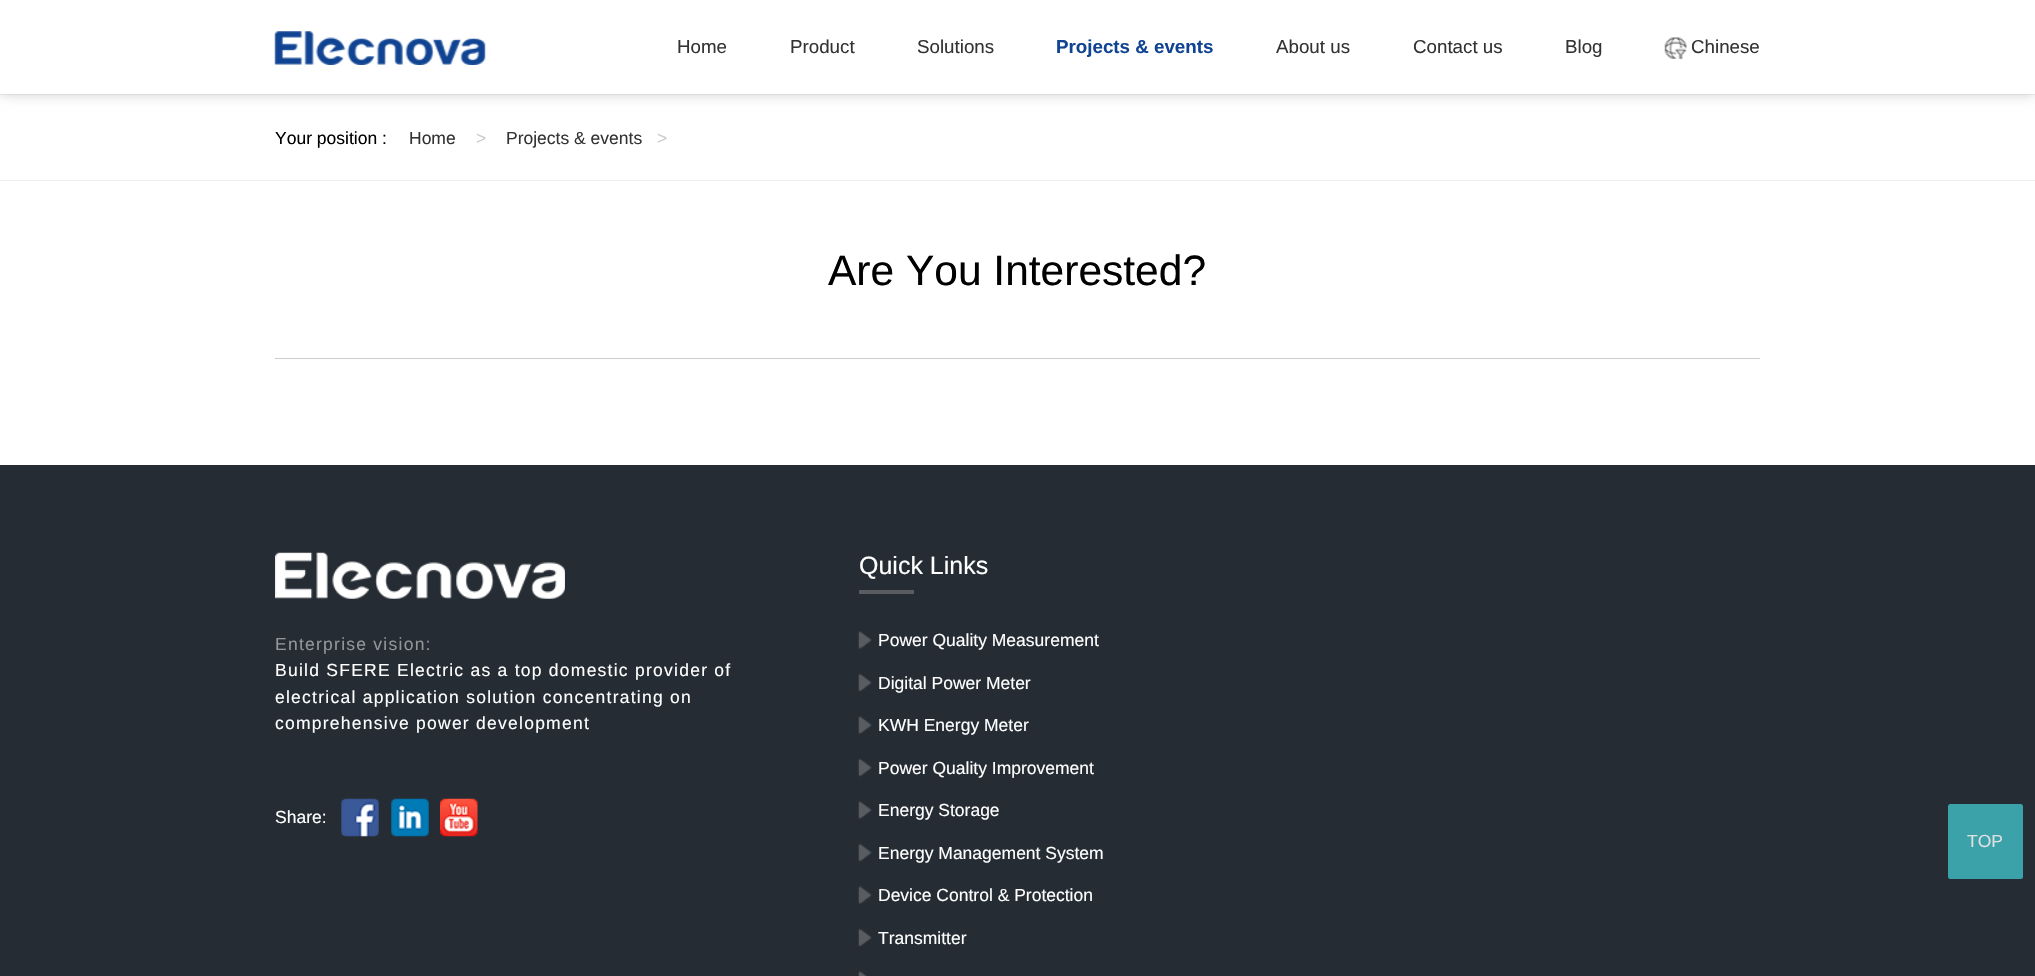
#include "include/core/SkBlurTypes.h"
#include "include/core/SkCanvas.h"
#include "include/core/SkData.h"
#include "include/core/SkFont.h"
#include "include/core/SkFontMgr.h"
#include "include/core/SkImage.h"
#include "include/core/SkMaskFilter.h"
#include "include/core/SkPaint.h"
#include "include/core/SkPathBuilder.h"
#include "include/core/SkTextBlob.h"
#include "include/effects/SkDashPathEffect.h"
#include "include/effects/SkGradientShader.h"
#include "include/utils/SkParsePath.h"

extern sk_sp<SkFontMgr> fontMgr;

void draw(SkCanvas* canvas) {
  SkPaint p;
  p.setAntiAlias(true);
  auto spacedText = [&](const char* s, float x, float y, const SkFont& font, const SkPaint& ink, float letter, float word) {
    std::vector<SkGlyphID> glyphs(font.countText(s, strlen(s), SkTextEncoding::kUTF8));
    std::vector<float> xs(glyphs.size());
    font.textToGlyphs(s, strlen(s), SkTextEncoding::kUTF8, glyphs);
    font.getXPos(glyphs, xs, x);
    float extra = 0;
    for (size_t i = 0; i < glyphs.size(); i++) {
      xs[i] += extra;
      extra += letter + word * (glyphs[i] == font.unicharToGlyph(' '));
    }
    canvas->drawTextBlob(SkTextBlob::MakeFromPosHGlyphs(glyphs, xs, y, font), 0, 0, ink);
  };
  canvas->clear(SK_ColorWHITE);
  p.setColor(SkColorSetRGB(237, 237, 237));
  canvas->drawRect(SkRect::MakeLTRB(0, 94, 2035, 95), p);
  p.setColor(SkColorSetRGB(204, 204, 204));
  p.setMaskFilter(SkMaskFilter::MakeBlur(kNormal_SkBlurStyle, 6));
  canvas->drawRect(SkRect::MakeLTRB(0, 0, 2035, 94), p);
  p.setMaskFilter(nullptr);
  p.setColor(SK_ColorWHITE);
  canvas->drawRect(SkRect::MakeLTRB(0, 0, 2035, 94), p);
  canvas->drawImageRect(SkImages::DeferredFromEncodedData(SkData::MakeFromFileName("images/1.png")), SkRect::MakeLTRB(274, 31, 486, 65), SkSamplingOptions());
  canvas->drawImageRect(SkImages::DeferredFromEncodedData(SkData::MakeFromFileName("images/2.png")), SkRect::MakeLTRB(1664, 37, 1687, 59), SkSamplingOptions());
  p.setColor(SkColorSetRGB(237, 237, 237));
  canvas->drawRect(SkRect::MakeLTRB(0, 180, 2035, 181), p);
  p.setColor(SkColorSetRGB(204, 204, 204));
  canvas->drawRect(SkRect::MakeLTRB(275, 358, 1760, 359), p);
  p.setColor(SkColorSetRGB(37, 44, 51));
  canvas->drawRect(SkRect::MakeLTRB(0, 465, 2035, 976), p);
  canvas->drawImageRect(SkImages::DeferredFromEncodedData(SkData::MakeFromFileName("images/3.png")), SkRect::MakeLTRB(275, 552, 565, 599), SkSamplingOptions());
  canvas->drawImageRect(SkImages::DeferredFromEncodedData(SkData::MakeFromFileName("images/4.png")), SkRect::MakeLTRB(341, 798, 379, 837), SkSamplingOptions());
  canvas->drawImageRect(SkImages::DeferredFromEncodedData(SkData::MakeFromFileName("images/5.png")), SkRect::MakeLTRB(391, 798, 429, 837), SkSamplingOptions());
  canvas->drawImageRect(SkImages::DeferredFromEncodedData(SkData::MakeFromFileName("images/6.png")), SkRect::MakeLTRB(440, 798, 478, 837), SkSamplingOptions());
  p.setColor(SkColorSetRGB(89, 92, 96));
  canvas->drawRect(SkRect::MakeLTRB(859, 590, 914, 594), p);
  canvas->drawImageRect(SkImages::DeferredFromEncodedData(SkData::MakeFromFileName("images/7.png")), SkRect::MakeLTRB(858, 631, 872, 649), SkSamplingOptions());
  canvas->drawImageRect(SkImages::DeferredFromEncodedData(SkData::MakeFromFileName("images/8.png")), SkRect::MakeLTRB(858, 673, 872, 692), SkSamplingOptions());
  canvas->drawImageRect(SkImages::DeferredFromEncodedData(SkData::MakeFromFileName("images/7.png")), SkRect::MakeLTRB(858, 716, 872, 734), SkSamplingOptions());
  canvas->drawImageRect(SkImages::DeferredFromEncodedData(SkData::MakeFromFileName("images/8.png")), SkRect::MakeLTRB(858, 758, 872, 777), SkSamplingOptions());
  canvas->drawImageRect(SkImages::DeferredFromEncodedData(SkData::MakeFromFileName("images/7.png")), SkRect::MakeLTRB(858, 801, 872, 819), SkSamplingOptions());
  canvas->drawImageRect(SkImages::DeferredFromEncodedData(SkData::MakeFromFileName("images/8.png")), SkRect::MakeLTRB(858, 843, 872, 862), SkSamplingOptions());
  canvas->drawImageRect(SkImages::DeferredFromEncodedData(SkData::MakeFromFileName("images/7.png")), SkRect::MakeLTRB(858, 886, 872, 904), SkSamplingOptions());
  canvas->drawImageRect(SkImages::DeferredFromEncodedData(SkData::MakeFromFileName("images/8.png")), SkRect::MakeLTRB(858, 928, 872, 947), SkSamplingOptions());
  canvas->drawImageRect(SkImages::DeferredFromEncodedData(SkData::MakeFromFileName("images/9.png")), SkRect::MakeLTRB(858, 971, 867, 976), SkSamplingOptions());
  p.setColor(SkColorSetRGB(60, 162, 170));
  canvas->drawRoundRect(SkRect::MakeLTRB(1948, 804, 2023, 879), 2.5f, 2.5f, p);
  SkFont font1(fontMgr->matchFamilyStyle("Liberation Sans", SkFontStyle::Normal()), 18.75f);
  font1.setSubpixel(true);
  p.setColor(SkColorSetRGB(51, 51, 51));
  canvas->drawString("Home", 677, 53, font1, p);
  canvas->drawString("Product", 790, 53, font1, p);
  canvas->drawString("Solutions", 917, 53, font1, p);
  SkFont font2(fontMgr->matchFamilyStyle("Liberation Sans", SkFontStyle::Bold()), 18.75f);
  font2.setSubpixel(true);
  p.setColor(SkColorSetRGB(16, 68, 146));
  canvas->drawString("Projects & events", 1056, 53, font2, p);
  p.setColor(SkColorSetRGB(51, 51, 51));
  canvas->drawString("About us", 1276, 53, font1, p);
  canvas->drawString("Contact us", 1413, 53, font1, p);
  canvas->drawString("Blog", 1565, 53, font1, p);
  canvas->drawString("Chinese", 1691, 53, font1, p);
  SkFont font3(fontMgr->matchFamilyStyle("Liberation Sans", SkFontStyle::Normal()), 17.5f);
  font3.setSubpixel(true);
  p.setColor(SK_ColorBLACK);
  canvas->drawString("Your position :", 275, 144, font3, p);
  p.setColor(SkColorSetRGB(51, 51, 51));
  canvas->drawString("Home", 409, 144, font3, p);
  p.setColor(SkColorSetRGB(204, 204, 204));
  canvas->drawString(">", 476, 144, font3, p);
  p.setColor(SkColorSetRGB(51, 51, 51));
  canvas->drawString("Projects & events", 506, 144, font3, p);
  p.setColor(SkColorSetRGB(204, 204, 204));
  canvas->drawString(">", 657, 144, font3, p);
  SkFont font4(fontMgr->matchFamilyStyle("Liberation Sans", SkFontStyle::Normal()), 42.5f);
  font4.setSubpixel(true);
  p.setColor(SK_ColorBLACK);
  canvas->drawString("Are You Interested?", 828, 285, font4, p);
  p.setColor(SkColorSetRGB(146, 150, 153));
  spacedText("Enterprise vision:", 275, 650, font3, p, 1.25f, 0);
  p.setColor(SK_ColorWHITE);
  spacedText("Build SFERE Electric as a top domestic provider of", 275, 676, font3, p, 1.25f, 0);
  spacedText("electrical application solution concentrating on", 275, 703, font3, p, 1.25f, 0);
  spacedText("comprehensive power development", 275, 729, font3, p, 1.25f, 0);
  canvas->drawString("Share:", 275, 823, font3, p);
  SkFont font5(fontMgr->matchFamilyStyle("Liberation Sans", SkFontStyle::Normal()), 25);
  font5.setSubpixel(true);
  canvas->drawString("Quick Links", 859, 574, font5, p);
  canvas->drawString("Power Quality Measurement", 878, 646, font3, p);
  canvas->drawString("Digital Power Meter", 878, 689, font3, p);
  canvas->drawString("KWH Energy Meter", 878, 731, font3, p);
  canvas->drawString("Power Quality Improvement", 878, 774, font3, p);
  canvas->drawString("Energy Storage", 878, 816, font3, p);
  canvas->drawString("Energy Management System", 878, 859, font3, p);
  canvas->drawString("Device Control & Protection", 878, 901, font3, p);
  canvas->drawString("Transmitter", 878, 944, font3, p);
  p.setColor(SkColorSetRGB(222, 223, 224));
  canvas->drawString("TOP", 1967, 847, font3, p);
}
